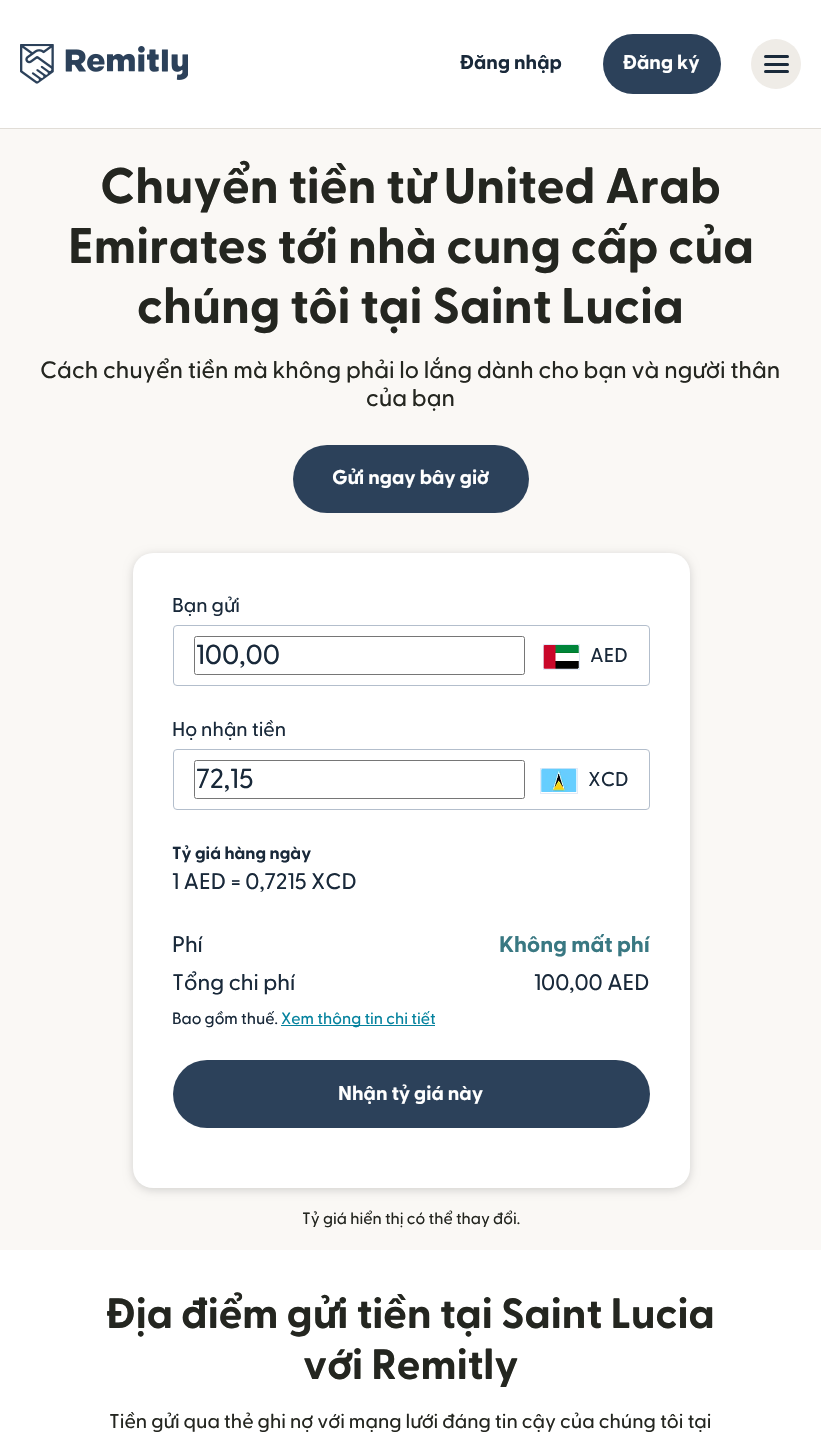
#include "include/core/SkBlurTypes.h"
#include "include/core/SkCanvas.h"
#include "include/core/SkData.h"
#include "include/core/SkFont.h"
#include "include/core/SkFontMgr.h"
#include "include/core/SkImage.h"
#include "include/core/SkMaskFilter.h"
#include "include/core/SkPaint.h"
#include "include/core/SkPathBuilder.h"
#include "include/core/SkTextBlob.h"
#include "include/effects/SkDashPathEffect.h"
#include "include/effects/SkGradientShader.h"
#include "include/utils/SkParsePath.h"

extern sk_sp<SkFontMgr> fontMgr;

void draw(SkCanvas* canvas) {
  SkPaint p;
  p.setAntiAlias(true);
  canvas->clear(SK_ColorWHITE);
  p.setColor(SkColorSetRGB(225, 221, 215));
  canvas->drawRect(SkRect::MakeLTRB(0, 128, 821, 129), p);
  canvas->drawImageRect(SkImages::DeferredFromEncodedData(SkData::MakeFromFileName("images/1.png")), SkRect::MakeLTRB(20, 44, 188, 84), SkSamplingOptions());
  p.setColor(SkColorSetRGB(44, 65, 90));
  canvas->drawRoundRect(SkRect::MakeLTRB(603, 34, 721, 94), 30, 30, p);
  p.setColor(SkColorSetRGB(239, 236, 231));
  canvas->drawCircle(776, 64, 25, p);
  p.setColor(SkColorSetRGB(25, 41, 58));
  canvas->drawRoundRect(SkRect::MakeLTRB(764, 55, 789, 58), 1.5f, 1.5f, p);
  canvas->drawRoundRect(SkRect::MakeLTRB(764, 63, 789, 66), 1.5f, 1.5f, p);
  canvas->drawRoundRect(SkRect::MakeLTRB(764, 70, 789, 73), 1.5f, 1.5f, p);
  p.setColor(SkColorSetRGB(250, 248, 245));
  canvas->drawRect(SkRect::MakeLTRB(0, 129, 821, 1250), p);
  p.setColor(SkColorSetRGB(44, 65, 90));
  canvas->drawRoundRect(SkRect::MakeLTRB(293, 445, 529, 513), 34, 34, p);
  p.setColor(SkColorSetARGB(41, 0, 0, 0));
  p.setMaskFilter(SkMaskFilter::MakeBlur(kNormal_SkBlurStyle, 5));
  canvas->drawRoundRect(SkRect::MakeLTRB(133, 555, 690, 1190), 20, 20, p);
  p.setMaskFilter(nullptr);
  p.setColor(SK_ColorWHITE);
  canvas->drawRoundRect(SkRect::MakeLTRB(133, 553, 690, 1188), 20, 20, p);
  p.setStyle(SkPaint::kStroke_Style);
  p.setStrokeWidth(1);
  p.setColor(SkColorSetRGB(179, 190, 204));
  canvas->drawRoundRect(SkRect::MakeLTRB(173.5f, 625.5f, 649.5f, 685.5f), 3.5f, 3.5f, p);
  p.setColor(SkColorSetRGB(118, 118, 118));
  canvas->drawRoundRect(SkRect::MakeLTRB(194.5f, 636.5f, 524.5f, 674.5f), 2, 2, p);
  p.setColor(SkColorSetRGB(226, 234, 247));
  canvas->drawRect(SkRect::MakeLTRB(543.5f, 644.5f, 579.5f, 669.5f), p);
  canvas->drawImageRect(SkImages::DeferredFromEncodedData(SkData::MakeFromFileName("images/2.png")), SkRect::MakeLTRB(543, 645, 579, 669), SkSamplingOptions());
  p.setColor(SkColorSetRGB(179, 190, 204));
  canvas->drawRoundRect(SkRect::MakeLTRB(173.5f, 749.5f, 649.5f, 809.5f), 3.5f, 3.5f, p);
  p.setColor(SkColorSetRGB(118, 118, 118));
  canvas->drawRoundRect(SkRect::MakeLTRB(194.5f, 760.5f, 524.5f, 798.5f), 2, 2, p);
  p.setColor(SkColorSetRGB(226, 234, 247));
  canvas->drawRect(SkRect::MakeLTRB(540.5f, 768.5f, 577.5f, 793.5f), p);
  canvas->drawImageRect(SkImages::DeferredFromEncodedData(SkData::MakeFromFileName("images/3.png")), SkRect::MakeLTRB(541, 768, 577, 792), SkSamplingOptions());
  p.setStyle(SkPaint::kFill_Style);
  p.setColor(SkColorSetRGB(4, 130, 158));
  canvas->drawRect(SkRect::MakeLTRB(281, 1025, 435, 1026), p);
  p.setColor(SkColorSetRGB(44, 65, 90));
  canvas->drawRoundRect(SkRect::MakeLTRB(173, 1060, 650, 1128), 34, 34, p);
  SkFont font1(fontMgr->matchFamilyStyle("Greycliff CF", SkFontStyle::Bold()), 20);
  font1.setSubpixel(true);
  p.setColor(SkColorSetRGB(25, 41, 58));
  canvas->drawString("Đăng nhập", 460, 69, font1, p);
  p.setColor(SK_ColorWHITE);
  canvas->drawString("Đăng ký", 623, 69, font1, p);
  SkFont font2(fontMgr->matchFamilyStyle("Greycliff CF", SkFontStyle::Bold()), 50);
  font2.setSubpixel(true);
  p.setColor(SkColorSetRGB(36, 38, 32));
  canvas->drawString("Chuyển tiền từ United Arab", 100, 203, font2, p);
  canvas->drawString("Emirates tới nhà cung cấp của", 68, 263, font2, p);
  canvas->drawString("chúng tôi tại Saint Lucia", 137, 323, font2, p);
  SkFont font3(fontMgr->matchFamilyStyle("Greycliff CF", SkFontStyle(500, SkFontStyle::kNormal_Width, SkFontStyle::kUpright_Slant)), 23.75f);
  font3.setSubpixel(true);
  canvas->drawString("Cách chuyển tiền mà không phải lo lắng dành cho bạn và người thân", 40, 378, font3, p);
  canvas->drawString("của bạn", 366, 406, font3, p);
  p.setColor(SK_ColorWHITE);
  canvas->drawString("Gửi ngay bây giờ", 332, 484, font1, p);
  SkFont font4(fontMgr->matchFamilyStyle("Greycliff CF", SkFontStyle(500, SkFontStyle::kNormal_Width, SkFontStyle::kUpright_Slant)), 20);
  font4.setSubpixel(true);
  p.setColor(SkColorSetRGB(25, 41, 58));
  canvas->drawString("Bạn gửi", 172, 612, font4, p);
  SkFont font5(fontMgr->matchFamilyStyle("Greycliff CF", SkFontStyle(500, SkFontStyle::kNormal_Width, SkFontStyle::kUpright_Slant)), 27.5f);
  font5.setSubpixel(true);
  canvas->drawString("100,00", 196, 664, font5, p);
  canvas->drawString("AED", 590, 662, font4, p);
  canvas->drawString("Họ nhận tiền", 172, 736, font4, p);
  canvas->drawString("72,15", 196, 788, font5, p);
  canvas->drawString("XCD", 588, 786, font4, p);
  SkFont font6(fontMgr->matchFamilyStyle("Greycliff CF", SkFontStyle::Bold()), 17.5f);
  font6.setSubpixel(true);
  canvas->drawString("Tỷ giá hàng ngày", 172, 859, font6, p);
  SkFont font7(fontMgr->matchFamilyStyle("Greycliff CF", SkFontStyle(500, SkFontStyle::kNormal_Width, SkFontStyle::kUpright_Slant)), 22.5f);
  font7.setSubpixel(true);
  canvas->drawString("1 AED = 0,7215 XCD", 172, 889, font7, p);
  canvas->drawString("Phí", 172, 952, font7, p);
  SkFont font8(fontMgr->matchFamilyStyle("Greycliff CF", SkFontStyle::Bold()), 22.5f);
  font8.setSubpixel(true);
  p.setColor(SkColorSetRGB(57, 120, 130));
  canvas->drawString("Không mất phí", 499, 952, font8, p);
  p.setColor(SkColorSetRGB(25, 41, 58));
  canvas->drawString("Tổng chi phí", 172, 990, font7, p);
  canvas->drawString("100,00 AED", 534, 990, font7, p);
  SkFont font9(fontMgr->matchFamilyStyle("Greycliff CF", SkFontStyle(500, SkFontStyle::kNormal_Width, SkFontStyle::kUpright_Slant)), 16.25f);
  font9.setSubpixel(true);
  canvas->drawString("Bao gồm thuế.", 172, 1024, font9, p);
  p.setColor(SkColorSetRGB(4, 130, 158));
  canvas->drawString("Xem thông tin chi tiết", 281, 1024, font9, p);
  p.setColor(SK_ColorWHITE);
  canvas->drawString("Nhận tỷ giá này", 338, 1100, font1, p);
  p.setColor(SkColorSetRGB(36, 38, 32));
  canvas->drawString("Tỷ giá hiển thị có thể thay đổi.", 302, 1224, font9, p);
  SkFont font10(fontMgr->matchFamilyStyle("Greycliff CF", SkFontStyle::Bold()), 42.5f);
  font10.setSubpixel(true);
  canvas->drawString("Địa điểm gửi tiền tại Saint Lucia", 106, 1328, font10, p);
  canvas->drawString("với Remitly", 303, 1379, font10, p);
  canvas->drawString("Tiền gửi qua thẻ ghi nợ với mạng lưới đáng tin cậy của chúng tôi tại", 109, 1428, font4, p);
}
